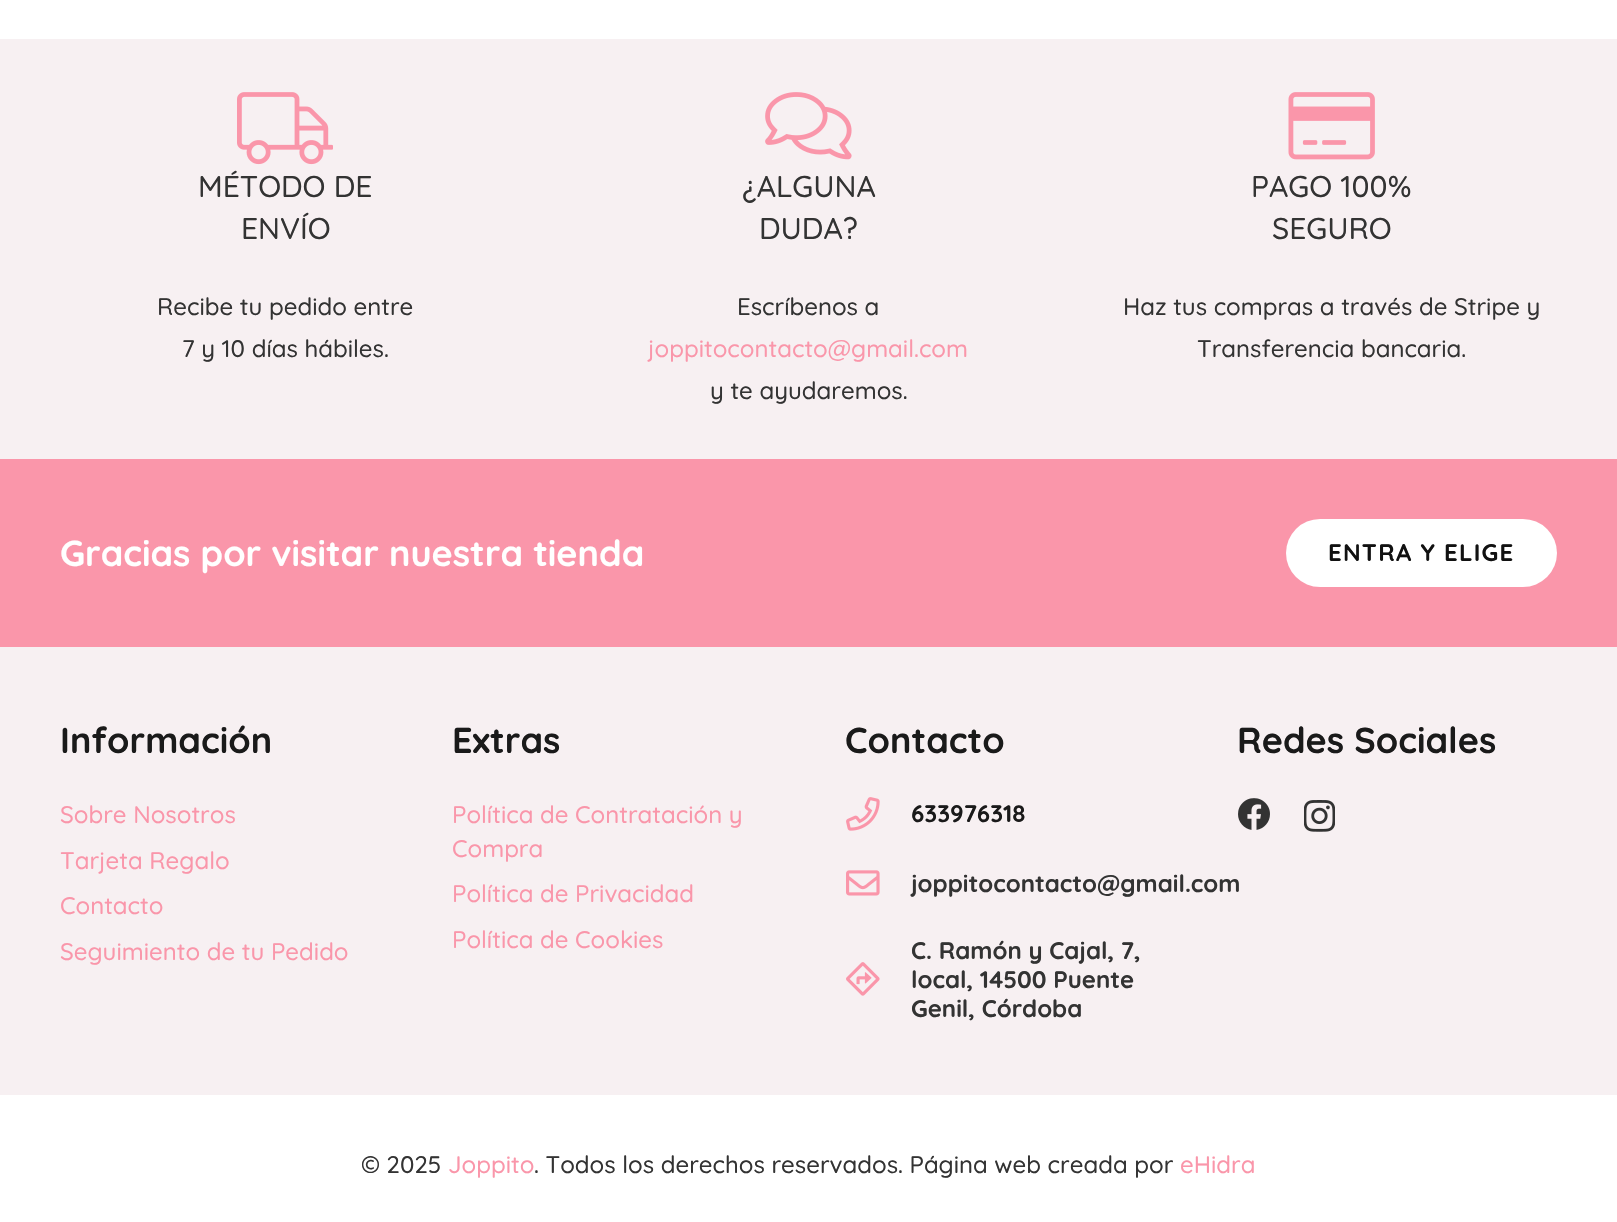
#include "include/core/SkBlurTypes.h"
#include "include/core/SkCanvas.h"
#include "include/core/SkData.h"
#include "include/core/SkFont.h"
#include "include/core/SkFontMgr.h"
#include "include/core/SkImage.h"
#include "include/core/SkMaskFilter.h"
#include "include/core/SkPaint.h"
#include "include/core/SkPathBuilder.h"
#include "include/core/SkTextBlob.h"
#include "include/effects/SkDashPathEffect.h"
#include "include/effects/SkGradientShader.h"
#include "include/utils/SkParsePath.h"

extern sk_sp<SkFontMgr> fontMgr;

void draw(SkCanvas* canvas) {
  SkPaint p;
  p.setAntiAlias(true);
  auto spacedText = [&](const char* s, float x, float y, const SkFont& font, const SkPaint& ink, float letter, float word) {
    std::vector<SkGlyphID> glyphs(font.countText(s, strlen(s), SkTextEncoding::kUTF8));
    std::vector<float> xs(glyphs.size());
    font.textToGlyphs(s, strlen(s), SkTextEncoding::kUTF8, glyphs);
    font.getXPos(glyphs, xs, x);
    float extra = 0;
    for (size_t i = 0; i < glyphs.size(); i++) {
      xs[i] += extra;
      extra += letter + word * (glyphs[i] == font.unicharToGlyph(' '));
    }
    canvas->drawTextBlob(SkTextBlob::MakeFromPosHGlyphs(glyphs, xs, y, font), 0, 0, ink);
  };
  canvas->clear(SK_ColorWHITE);
  p.setColor(SkColorSetRGB(247, 240, 242));
  canvas->drawRect(SkRect::MakeLTRB(0, 39, 1617, 459), p);
  canvas->drawImageRect(SkImages::DeferredFromEncodedData(SkData::MakeFromFileName("images/1.png")), SkRect::MakeLTRB(237, 92, 333, 165), SkSamplingOptions());
  canvas->drawImageRect(SkImages::DeferredFromEncodedData(SkData::MakeFromFileName("images/2.png")), SkRect::MakeLTRB(765, 92, 852, 160), SkSamplingOptions());
  canvas->drawImageRect(SkImages::DeferredFromEncodedData(SkData::MakeFromFileName("images/3.png")), SkRect::MakeLTRB(1288, 92, 1375, 160), SkSamplingOptions());
  p.setColor(SkColorSetRGB(250, 150, 170));
  canvas->drawRect(SkRect::MakeLTRB(0, 459, 1617, 647), p);
  p.setColor(SK_ColorWHITE);
  canvas->drawRoundRect(SkRect::MakeLTRB(1286, 519, 1557, 587), 34, 34, p);
  p.setColor(SkColorSetRGB(247, 240, 242));
  canvas->drawRect(SkRect::MakeLTRB(0, 647, 1617, 1095), p);
  canvas->drawImageRect(SkImages::DeferredFromEncodedData(SkData::MakeFromFileName("images/4.png")), SkRect::MakeLTRB(846, 797, 880, 831), SkSamplingOptions());
  canvas->drawImageRect(SkImages::DeferredFromEncodedData(SkData::MakeFromFileName("images/5.png")), SkRect::MakeLTRB(846, 870, 880, 896), SkSamplingOptions());
  canvas->drawImageRect(SkImages::DeferredFromEncodedData(SkData::MakeFromFileName("images/6.png")), SkRect::MakeLTRB(846, 962, 880, 996), SkSamplingOptions());
  canvas->drawImageRect(SkImages::DeferredFromEncodedData(SkData::MakeFromFileName("images/7.png")), SkRect::MakeLTRB(1238, 798, 1270, 830), SkSamplingOptions());
  canvas->drawImageRect(SkImages::DeferredFromEncodedData(SkData::MakeFromFileName("images/8.png")), SkRect::MakeLTRB(1304, 800, 1335, 832), SkSamplingOptions());
  SkFont font1(fontMgr->matchFamilyStyle("Quicksand", SkFontStyle(500, SkFontStyle::kNormal_Width, SkFontStyle::kUpright_Slant)), 30);
  font1.setSubpixel(true);
  p.setColor(SkColorSetRGB(51, 51, 51));
  canvas->drawString("MÉTODO DE", 198, 197, font1, p);
  canvas->drawString("ENVÍO", 241, 239, font1, p);
  SkFont font2(fontMgr->matchFamilyStyle("Quicksand", SkFontStyle(500, SkFontStyle::kNormal_Width, SkFontStyle::kUpright_Slant)), 24);
  font2.setSubpixel(true);
  canvas->drawString("Recibe tu pedido entre", 157, 315, font2, p);
  canvas->drawString("7 y 10 días hábiles.", 182, 357, font2, p);
  canvas->drawString("¿ALGUNA", 742, 197, font1, p);
  canvas->drawString("DUDA?", 759, 239, font1, p);
  canvas->drawString("Escríbenos a", 737, 315, font2, p);
  p.setColor(SkColorSetRGB(250, 150, 170));
  canvas->drawString("joppitocontacto@gmail.com", 648, 357, font2, p);
  p.setColor(SkColorSetRGB(51, 51, 51));
  canvas->drawString("y te ayudaremos.", 710, 399, font2, p);
  canvas->drawString("PAGO 100%", 1251, 197, font1, p);
  canvas->drawString("SEGURO", 1272, 239, font1, p);
  canvas->drawString("Haz tus compras a través de Stripe y", 1123, 315, font2, p);
  canvas->drawString("Transferencia bancaria.", 1197, 357, font2, p);
  SkFont font3(fontMgr->matchFamilyStyle("Quicksand", SkFontStyle::Bold()), 36);
  font3.setSubpixel(true);
  p.setColor(SK_ColorWHITE);
  canvas->drawString("Gracias por visitar nuestra tienda", 60, 566, font3, p);
  SkFont font4(fontMgr->matchFamilyStyle("Quicksand", SkFontStyle::Bold()), 24);
  font4.setSubpixel(true);
  p.setColor(SkColorSetRGB(17, 17, 17));
  spacedText("ENTRA Y ELIGE", 1328, 561, font4, p, 1.25f, 0);
  p.setColor(SkColorSetRGB(26, 26, 26));
  canvas->drawString("Información", 60, 753, font3, p);
  p.setColor(SkColorSetRGB(250, 150, 170));
  canvas->drawString("Sobre Nosotros", 60, 823, font2, p);
  canvas->drawString("Tarjeta Regalo", 60, 869, font2, p);
  canvas->drawString("Contacto", 60, 914, font2, p);
  canvas->drawString("Seguimiento de tu Pedido", 60, 960, font2, p);
  p.setColor(SkColorSetRGB(26, 26, 26));
  canvas->drawString("Extras", 452, 753, font3, p);
  p.setColor(SkColorSetRGB(250, 150, 170));
  canvas->drawString("Política de Contratación y", 452, 823, font2, p);
  canvas->drawString("Compra", 452, 857, font2, p);
  canvas->drawString("Política de Privacidad", 452, 902, font2, p);
  canvas->drawString("Política de Cookies", 452, 948, font2, p);
  p.setColor(SkColorSetRGB(26, 26, 26));
  canvas->drawString("Contacto", 845, 753, font3, p);
  canvas->drawString("633976318", 911, 822, font4, p);
  p.setColor(SkColorSetRGB(51, 51, 51));
  canvas->drawString("joppitocontacto@gmail.com", 911, 892, font4, p);
  canvas->drawString("C. Ramón y Cajal, 7,", 911, 959, font4, p);
  canvas->drawString("local, 14500 Puente", 911, 988, font4, p);
  canvas->drawString("Genil, Córdoba", 911, 1017, font4, p);
  p.setColor(SkColorSetRGB(26, 26, 26));
  canvas->drawString("Redes Sociales", 1237, 753, font3, p);
  p.setColor(SkColorSetRGB(51, 51, 51));
  canvas->drawString("© 2025", 361, 1173, font2, p);
  p.setColor(SkColorSetRGB(250, 150, 170));
  canvas->drawString("Joppito", 448, 1173, font2, p);
  p.setColor(SkColorSetRGB(51, 51, 51));
  canvas->drawString(". Todos los derechos reservados. Página web creada por", 534, 1173, font2, p);
  p.setColor(SkColorSetRGB(250, 150, 170));
  canvas->drawString("eHidra", 1180, 1173, font2, p);
}
